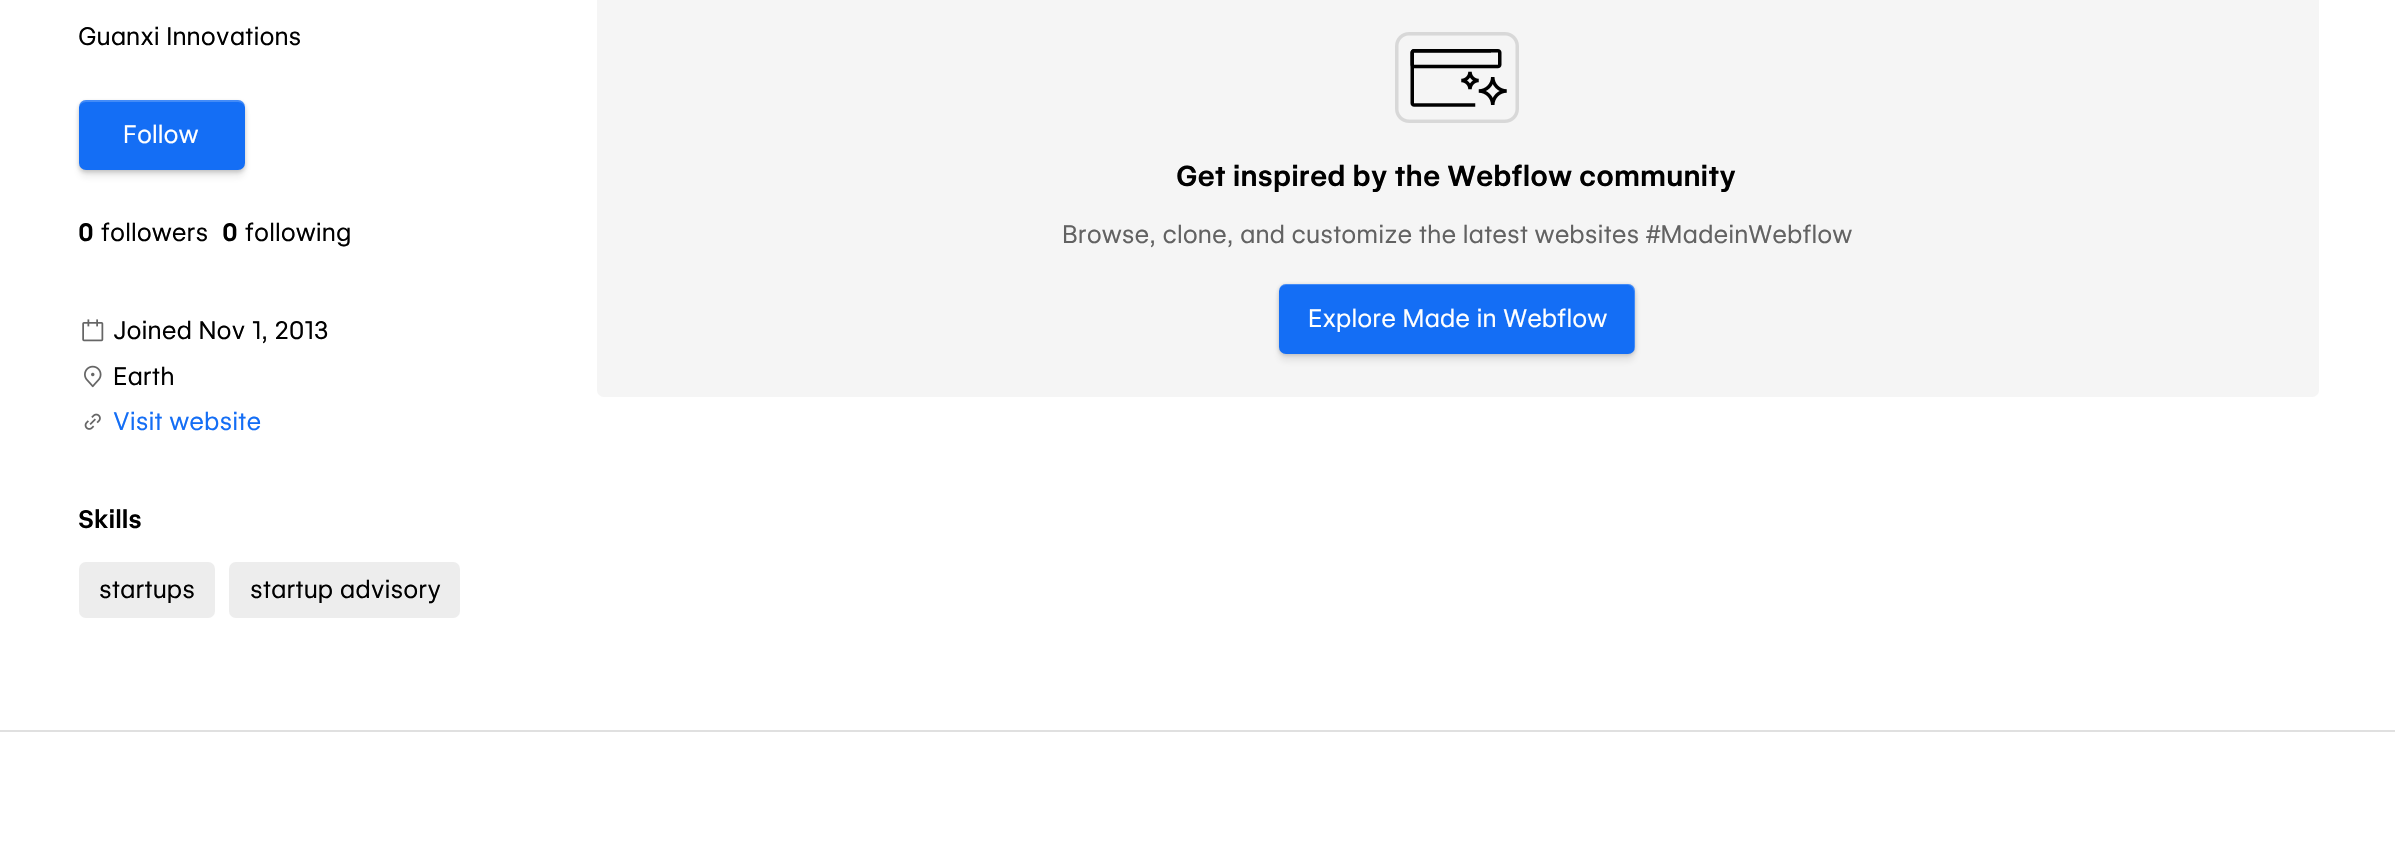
#include "include/core/SkBlurTypes.h"
#include "include/core/SkCanvas.h"
#include "include/core/SkData.h"
#include "include/core/SkFont.h"
#include "include/core/SkFontMgr.h"
#include "include/core/SkImage.h"
#include "include/core/SkMaskFilter.h"
#include "include/core/SkPaint.h"
#include "include/core/SkPathBuilder.h"
#include "include/core/SkTextBlob.h"
#include "include/effects/SkDashPathEffect.h"
#include "include/effects/SkGradientShader.h"
#include "include/utils/SkParsePath.h"

extern sk_sp<SkFontMgr> fontMgr;

void draw(SkCanvas* canvas) {
  SkPaint p;
  p.setAntiAlias(true);
  canvas->clear(SK_ColorWHITE);
  p.setColor(SkColorSetARGB(20, 8, 8, 8));
  p.setMaskFilter(SkMaskFilter::MakeBlur(kNormal_SkBlurStyle, 3.5f));
  canvas->drawRoundRect(SkRect::MakeLTRB(79, 107, 245, 177), 7, 7, p);
  p.setMaskFilter(nullptr);
  p.setColor(SkColorSetARGB(51, 8, 8, 8));
  p.setMaskFilter(SkMaskFilter::MakeBlur(kNormal_SkBlurStyle, 2));
  canvas->drawRoundRect(SkRect::MakeLTRB(79, 102, 245, 172), 7, 7, p);
  p.setMaskFilter(nullptr);
  p.setColor(SkColorSetRGB(20, 110, 245));
  canvas->drawRoundRect(SkRect::MakeLTRB(79, 100, 245, 170), 7, 7, p);
  p.setColor(SkColorSetARGB(51, 255, 255, 255));
  canvas->drawPath(SkPathBuilder().moveTo(86, 102).lineTo(238, 102).cubicTo(242, 102, 245, 105, 245, 108).lineTo(245, 107).cubicTo(245, 103, 242, 100, 238, 100).lineTo(86, 100).cubicTo(82, 100, 79, 103, 79, 107).lineTo(79, 108).cubicTo(79, 105, 82, 102, 86, 102).close().detach(), p);
  canvas->drawImageRect(SkImages::DeferredFromEncodedData(SkData::MakeFromFileName("images/1.png")), SkRect::MakeLTRB(82, 319, 104, 342), SkSamplingOptions());
  canvas->drawImageRect(SkImages::DeferredFromEncodedData(SkData::MakeFromFileName("images/2.png")), SkRect::MakeLTRB(84, 365, 102, 388), SkSamplingOptions());
  canvas->drawImageRect(SkImages::DeferredFromEncodedData(SkData::MakeFromFileName("images/3.png")), SkRect::MakeLTRB(84, 413, 101, 430), SkSamplingOptions());
  p.setColor(SkColorSetRGB(237, 237, 237));
  canvas->drawRoundRect(SkRect::MakeLTRB(79, 562, 215, 618), 7, 7, p);
  canvas->drawRoundRect(SkRect::MakeLTRB(229, 562, 460, 618), 7, 7, p);
  p.setColor(SkColorSetRGB(245, 245, 245));
  canvas->drawRoundRect(SkRect::MakeLTRB(597, -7, 2319, 397), 7, 7, p);
  canvas->drawImageRect(SkImages::DeferredFromEncodedData(SkData::MakeFromFileName("images/4.png")), SkRect::MakeLTRB(1395, 32, 1519, 123), SkSamplingOptions());
  p.setColor(SkColorSetARGB(20, 8, 8, 8));
  p.setMaskFilter(SkMaskFilter::MakeBlur(kNormal_SkBlurStyle, 3.5f));
  canvas->drawRoundRect(SkRect::MakeLTRB(1279, 291, 1635, 361), 7, 7, p);
  p.setMaskFilter(nullptr);
  p.setColor(SkColorSetARGB(51, 8, 8, 8));
  p.setMaskFilter(SkMaskFilter::MakeBlur(kNormal_SkBlurStyle, 2));
  canvas->drawRoundRect(SkRect::MakeLTRB(1279, 285, 1635, 355), 7, 7, p);
  p.setMaskFilter(nullptr);
  p.setColor(SkColorSetRGB(20, 110, 245));
  canvas->drawRoundRect(SkRect::MakeLTRB(1279, 284, 1635, 354), 7, 7, p);
  p.setColor(SkColorSetARGB(51, 255, 255, 255));
  canvas->drawPath(SkPathBuilder().moveTo(1286, 285).lineTo(1628, 285).cubicTo(1631, 285, 1634, 288, 1634, 292).lineTo(1634, 348).cubicTo(1634, 350, 1634, 351, 1633, 352).cubicTo(1634, 351, 1635, 349, 1635, 347).lineTo(1635, 291).cubicTo(1635, 287, 1632, 284, 1628, 284).lineTo(1286, 284).cubicTo(1282, 284, 1279, 287, 1279, 291).lineTo(1279, 292).cubicTo(1279, 288, 1282, 285, 1286, 285).close().detach(), p);
  p.setColor(SkColorSetRGB(224, 224, 224));
  canvas->drawRect(SkRect::MakeLTRB(0, 730, 2395, 732), p);
  SkFont font1(fontMgr->matchFamilyStyle("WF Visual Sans", SkFontStyle::Normal()), 24.5f);
  font1.setSubpixel(true);
  p.setColor(SK_ColorBLACK);
  canvas->drawString("Guanxi Innovations", 78, 45, font1, p);
  p.setColor(SK_ColorWHITE);
  canvas->drawString("Follow", 123, 143, font1, p);
  SkFont font2(fontMgr->matchFamilyStyle("WF Visual Sans", SkFontStyle(600, SkFontStyle::kNormal_Width, SkFontStyle::kUpright_Slant)), 24.5f);
  font2.setSubpixel(true);
  p.setColor(SK_ColorBLACK);
  canvas->drawString("0", 78, 241, font2, p);
  canvas->drawString("followers", 101, 241, font1, p);
  canvas->drawString("0", 222, 241, font2, p);
  canvas->drawString("following", 245, 241, font1, p);
  canvas->drawString("Joined Nov 1, 2013", 113, 339, font1, p);
  canvas->drawString("Earth", 113, 385, font1, p);
  p.setColor(SkColorSetRGB(20, 110, 245));
  canvas->drawString("Visit website", 113, 430, font1, p);
  p.setColor(SK_ColorBLACK);
  canvas->drawString("Skills", 78, 528, font2, p);
  canvas->drawString("startups", 99, 598, font1, p);
  canvas->drawString("startup advisory", 250, 598, font1, p);
  SkFont font3(fontMgr->matchFamilyStyle("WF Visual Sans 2", SkFontStyle(600, SkFontStyle::kNormal_Width, SkFontStyle::kUpright_Slant)), 28);
  font3.setSubpixel(true);
  canvas->drawString("Get inspired by the Webflow community", 1176, 186, font3, p);
  p.setColor(SkColorSetRGB(98, 98, 98));
  canvas->drawString("Browse, clone, and customize the latest websites #MadeinWebflow", 1062, 243, font1, p);
  p.setColor(SK_ColorWHITE);
  canvas->drawString("Explore Made in Webflow", 1308, 327, font1, p);
}
